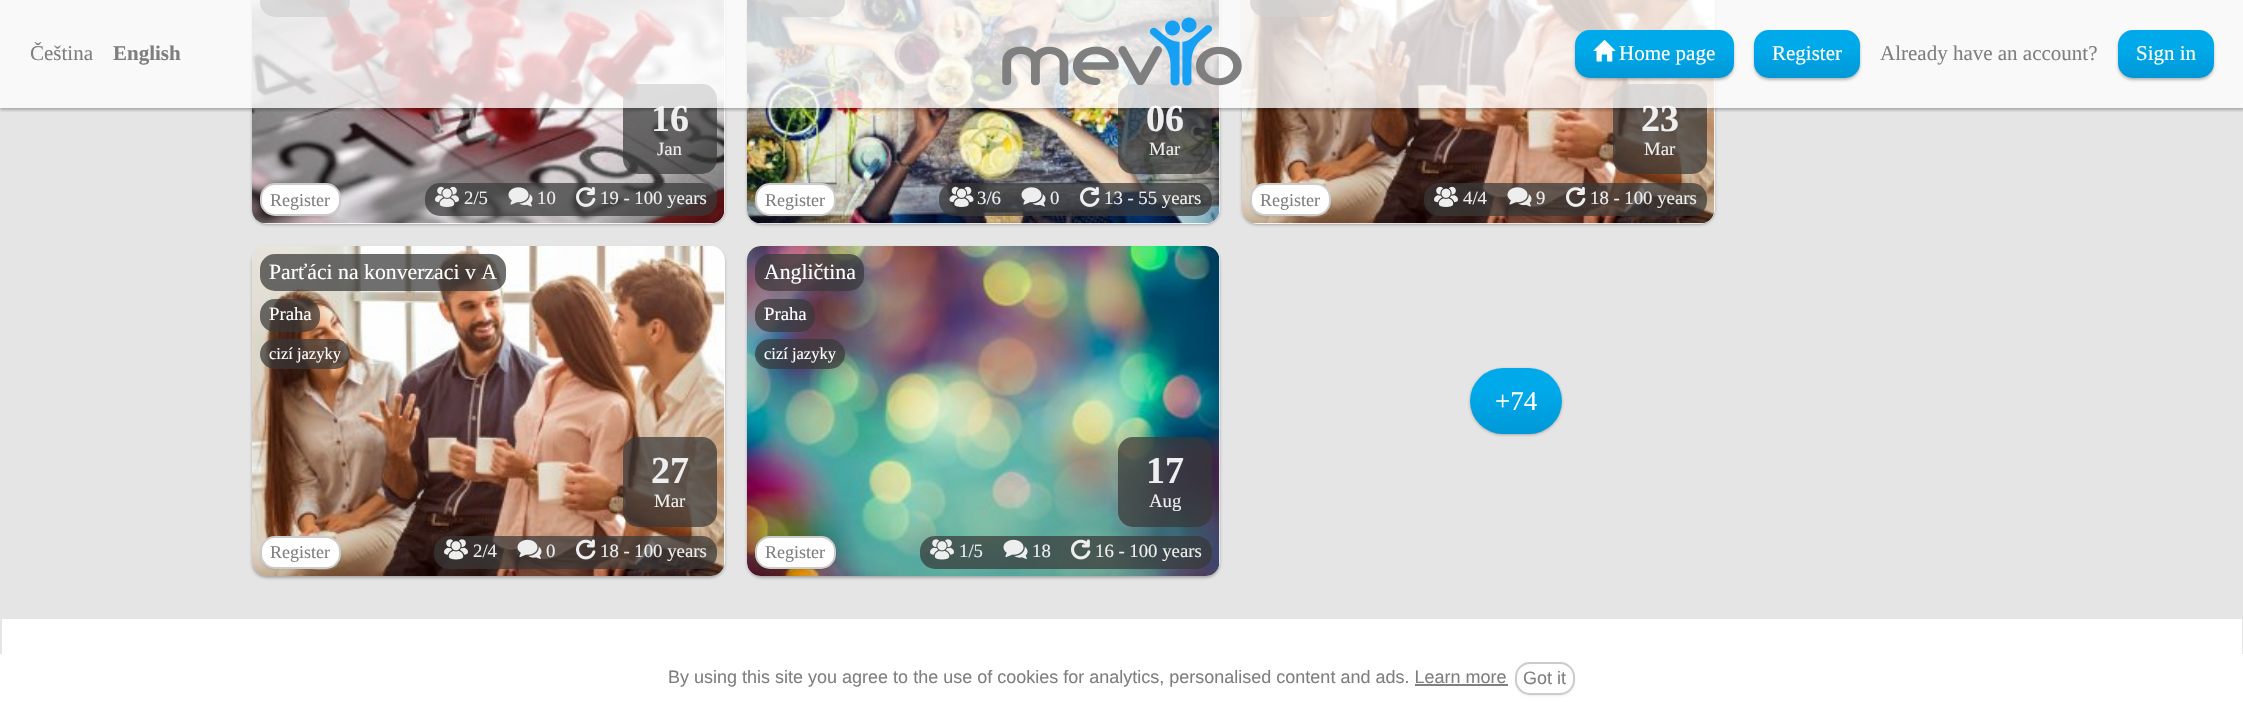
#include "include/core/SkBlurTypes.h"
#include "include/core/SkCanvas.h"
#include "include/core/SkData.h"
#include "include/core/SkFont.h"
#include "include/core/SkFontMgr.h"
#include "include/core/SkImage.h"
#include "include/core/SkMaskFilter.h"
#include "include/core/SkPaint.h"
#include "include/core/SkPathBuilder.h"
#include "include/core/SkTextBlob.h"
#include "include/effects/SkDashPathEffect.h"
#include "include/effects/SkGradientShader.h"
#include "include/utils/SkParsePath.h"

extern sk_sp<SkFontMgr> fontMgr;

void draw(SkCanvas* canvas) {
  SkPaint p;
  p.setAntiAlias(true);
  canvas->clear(SkColorSetRGB(229, 229, 229));
  p.setColor(SkColorSetARGB(69, 0, 0, 0));
  p.setMaskFilter(SkMaskFilter::MakeBlur(kNormal_SkBlurStyle, 1.5f));
  canvas->drawRoundRect(SkRect::MakeLTRB(252, -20, 725, 225), 15, 15, p);
  p.setMaskFilter(nullptr);
  p.setColor(SK_ColorWHITE);
  canvas->drawRoundRect(SkRect::MakeLTRB(252, -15, 725, 224), 15, 15, p);
  canvas->drawImageRect(SkImages::DeferredFromEncodedData(SkData::MakeFromFileName("images/3.png")), SkRect::MakeLTRB(252, 0, 725, 224), SkSamplingOptions());
  p.setColor(SkColorSetARGB(184, 55, 55, 55));
  canvas->drawRoundRect(SkRect::MakeLTRB(260, -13, 350, 17), 15, 15, p);
  canvas->drawRoundRect(SkRect::MakeLTRB(623, 84, 717, 174), 15, 15, p);
  p.setColor(SkColorSetARGB(69, 0, 0, 0));
  p.setMaskFilter(SkMaskFilter::MakeBlur(kNormal_SkBlurStyle, 1.5f));
  canvas->drawRoundRect(SkRect::MakeLTRB(747, -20, 1220, 225), 15, 15, p);
  p.setMaskFilter(nullptr);
  p.setColor(SK_ColorWHITE);
  canvas->drawRoundRect(SkRect::MakeLTRB(747, -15, 1220, 224), 15, 15, p);
  canvas->drawImageRect(SkImages::DeferredFromEncodedData(SkData::MakeFromFileName("images/7.png")), SkRect::MakeLTRB(747, 0, 1220, 224), SkSamplingOptions());
  p.setColor(SkColorSetARGB(184, 55, 55, 55));
  canvas->drawRoundRect(SkRect::MakeLTRB(755, -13, 845, 17), 15, 15, p);
  canvas->drawRoundRect(SkRect::MakeLTRB(1118, 84, 1212, 174), 15, 15, p);
  p.setColor(SkColorSetARGB(69, 0, 0, 0));
  p.setMaskFilter(SkMaskFilter::MakeBlur(kNormal_SkBlurStyle, 1.5f));
  canvas->drawRoundRect(SkRect::MakeLTRB(1242, -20, 1715, 225), 15, 15, p);
  p.setMaskFilter(nullptr);
  p.setColor(SK_ColorWHITE);
  canvas->drawRoundRect(SkRect::MakeLTRB(1242, -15, 1715, 224), 15, 15, p);
  canvas->drawImageRect(SkImages::DeferredFromEncodedData(SkData::MakeFromFileName("images/11.png")), SkRect::MakeLTRB(1242, 0, 1715, 224), SkSamplingOptions());
  p.setColor(SkColorSetARGB(184, 55, 55, 55));
  canvas->drawRoundRect(SkRect::MakeLTRB(1250, -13, 1340, 17), 15, 15, p);
  canvas->drawRoundRect(SkRect::MakeLTRB(1613, 84, 1707, 174), 15, 15, p);
  canvas->save();
  canvas->clipRect(SkRect::MakeLTRB(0, 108, 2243, 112));
  p.setColor(SkColorSetARGB(69, 0, 0, 0));
  p.setMaskFilter(SkMaskFilter::MakeBlur(kNormal_SkBlurStyle, 1.5f));
  canvas->drawRect(SkRect::MakeLTRB(0, 2, 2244, 110), p);
  p.setMaskFilter(nullptr);
  canvas->restore();
  p.setColor(SkColorSetARGB(18, 0, 0, 0));
  p.setMaskFilter(SkMaskFilter::MakeBlur(kNormal_SkBlurStyle, 1));
  canvas->drawRoundRect(SkRect::MakeLTRB(260, 185, 341, 218), 15, 15, p);
  p.setMaskFilter(nullptr);
  p.setColor(SK_ColorWHITE);
  canvas->drawRoundRect(SkRect::MakeLTRB(261, 184, 340, 215), 14, 14, p);
  p.setStyle(SkPaint::kStroke_Style);
  p.setStrokeWidth(2);
  p.setColor(SkColorSetRGB(204, 204, 204));
  canvas->drawRoundRect(SkRect::MakeLTRB(261, 184, 340, 215), 14, 14, p);
  p.setStyle(SkPaint::kFill_Style);
  p.setColor(SkColorSetARGB(184, 55, 55, 55));
  canvas->drawRoundRect(SkRect::MakeLTRB(425, 183, 717, 216), 15, 15, p);
  canvas->drawImageRect(SkImages::DeferredFromEncodedData(SkData::MakeFromFileName("images/4.png")), SkRect::MakeLTRB(435, 186, 459, 207), SkSamplingOptions());
  canvas->drawImageRect(SkImages::DeferredFromEncodedData(SkData::MakeFromFileName("images/5.png")), SkRect::MakeLTRB(508, 187, 533, 207), SkSamplingOptions());
  canvas->drawImageRect(SkImages::DeferredFromEncodedData(SkData::MakeFromFileName("images/6.png")), SkRect::MakeLTRB(576, 187, 596, 207), SkSamplingOptions());
  p.setColor(SkColorSetARGB(18, 0, 0, 0));
  p.setMaskFilter(SkMaskFilter::MakeBlur(kNormal_SkBlurStyle, 1));
  canvas->drawRoundRect(SkRect::MakeLTRB(755, 185, 836, 218), 15, 15, p);
  p.setMaskFilter(nullptr);
  p.setColor(SK_ColorWHITE);
  canvas->drawRoundRect(SkRect::MakeLTRB(756, 184, 835, 215), 14, 14, p);
  p.setStyle(SkPaint::kStroke_Style);
  p.setColor(SkColorSetRGB(204, 204, 204));
  canvas->drawRoundRect(SkRect::MakeLTRB(756, 184, 835, 215), 14, 14, p);
  p.setStyle(SkPaint::kFill_Style);
  p.setColor(SkColorSetARGB(184, 55, 55, 55));
  canvas->drawRoundRect(SkRect::MakeLTRB(939, 183, 1212, 216), 15, 15, p);
  canvas->drawImageRect(SkImages::DeferredFromEncodedData(SkData::MakeFromFileName("images/8.png")), SkRect::MakeLTRB(949, 186, 974, 207), SkSamplingOptions());
  canvas->drawImageRect(SkImages::DeferredFromEncodedData(SkData::MakeFromFileName("images/9.png")), SkRect::MakeLTRB(1021, 187, 1046, 207), SkSamplingOptions());
  canvas->drawImageRect(SkImages::DeferredFromEncodedData(SkData::MakeFromFileName("images/10.png")), SkRect::MakeLTRB(1080, 187, 1100, 207), SkSamplingOptions());
  p.setColor(SkColorSetARGB(18, 0, 0, 0));
  p.setMaskFilter(SkMaskFilter::MakeBlur(kNormal_SkBlurStyle, 1));
  canvas->drawRoundRect(SkRect::MakeLTRB(1250, 185, 1331, 218), 15, 15, p);
  p.setMaskFilter(nullptr);
  p.setColor(SK_ColorWHITE);
  canvas->drawRoundRect(SkRect::MakeLTRB(1251, 184, 1330, 215), 14, 14, p);
  p.setStyle(SkPaint::kStroke_Style);
  p.setColor(SkColorSetRGB(204, 204, 204));
  canvas->drawRoundRect(SkRect::MakeLTRB(1251, 184, 1330, 215), 14, 14, p);
  p.setStyle(SkPaint::kFill_Style);
  p.setColor(SkColorSetARGB(184, 55, 55, 55));
  canvas->drawRoundRect(SkRect::MakeLTRB(1424, 183, 1707, 216), 15, 15, p);
  canvas->drawImageRect(SkImages::DeferredFromEncodedData(SkData::MakeFromFileName("images/12.png")), SkRect::MakeLTRB(1434, 186, 1458, 207), SkSamplingOptions());
  canvas->drawImageRect(SkImages::DeferredFromEncodedData(SkData::MakeFromFileName("images/13.png")), SkRect::MakeLTRB(1507, 187, 1532, 207), SkSamplingOptions());
  canvas->drawImageRect(SkImages::DeferredFromEncodedData(SkData::MakeFromFileName("images/14.png")), SkRect::MakeLTRB(1566, 187, 1586, 207), SkSamplingOptions());
  p.setColor(SkColorSetARGB(69, 0, 0, 0));
  p.setMaskFilter(SkMaskFilter::MakeBlur(kNormal_SkBlurStyle, 1.5f));
  canvas->drawRoundRect(SkRect::MakeLTRB(252, 248, 725, 578), 15, 15, p);
  p.setMaskFilter(nullptr);
  p.setColor(SK_ColorWHITE);
  canvas->drawRoundRect(SkRect::MakeLTRB(252, 246, 725, 576), 15, 15, p);
  canvas->drawImageRect(SkImages::DeferredFromEncodedData(SkData::MakeFromFileName("images/15.png")), SkRect::MakeLTRB(252, 246, 725, 576), SkSamplingOptions());
  p.setColor(SkColorSetARGB(184, 55, 55, 55));
  canvas->drawRoundRect(SkRect::MakeLTRB(260, 254, 506, 291), 15, 15, p);
  canvas->drawRoundRect(SkRect::MakeLTRB(260, 299, 320, 332), 15, 15, p);
  canvas->drawRoundRect(SkRect::MakeLTRB(260, 339, 350, 369), 15, 15, p);
  canvas->drawRoundRect(SkRect::MakeLTRB(623, 437, 717, 527), 15, 15, p);
  p.setColor(SkColorSetARGB(18, 0, 0, 0));
  p.setMaskFilter(SkMaskFilter::MakeBlur(kNormal_SkBlurStyle, 1));
  canvas->drawRoundRect(SkRect::MakeLTRB(260, 537, 341, 570), 15, 15, p);
  p.setMaskFilter(nullptr);
  p.setColor(SK_ColorWHITE);
  canvas->drawRoundRect(SkRect::MakeLTRB(261, 537, 340, 568), 14, 14, p);
  p.setStyle(SkPaint::kStroke_Style);
  p.setColor(SkColorSetRGB(204, 204, 204));
  canvas->drawRoundRect(SkRect::MakeLTRB(261, 537, 340, 568), 14, 14, p);
  p.setStyle(SkPaint::kFill_Style);
  p.setColor(SkColorSetARGB(184, 55, 55, 55));
  canvas->drawRoundRect(SkRect::MakeLTRB(434, 536, 717, 569), 15, 15, p);
  canvas->drawImageRect(SkImages::DeferredFromEncodedData(SkData::MakeFromFileName("images/16.png")), SkRect::MakeLTRB(444, 539, 468, 560), SkSamplingOptions());
  canvas->drawImageRect(SkImages::DeferredFromEncodedData(SkData::MakeFromFileName("images/17.png")), SkRect::MakeLTRB(517, 539, 542, 559), SkSamplingOptions());
  canvas->drawImageRect(SkImages::DeferredFromEncodedData(SkData::MakeFromFileName("images/18.png")), SkRect::MakeLTRB(576, 539, 596, 560), SkSamplingOptions());
  p.setColor(SkColorSetARGB(69, 0, 0, 0));
  p.setMaskFilter(SkMaskFilter::MakeBlur(kNormal_SkBlurStyle, 1.5f));
  canvas->drawRoundRect(SkRect::MakeLTRB(747, 248, 1220, 578), 15, 15, p);
  p.setMaskFilter(nullptr);
  p.setColor(SK_ColorWHITE);
  canvas->drawRoundRect(SkRect::MakeLTRB(747, 246, 1220, 576), 15, 15, p);
  canvas->drawImageRect(SkImages::DeferredFromEncodedData(SkData::MakeFromFileName("images/19.png")), SkRect::MakeLTRB(747, 246, 1220, 576), SkSamplingOptions());
  p.setColor(SkColorSetARGB(184, 55, 55, 55));
  canvas->drawRoundRect(SkRect::MakeLTRB(755, 254, 864, 291), 15, 15, p);
  canvas->drawRoundRect(SkRect::MakeLTRB(755, 299, 815, 332), 15, 15, p);
  canvas->drawRoundRect(SkRect::MakeLTRB(755, 339, 845, 369), 15, 15, p);
  canvas->drawRoundRect(SkRect::MakeLTRB(1118, 437, 1212, 527), 15, 15, p);
  p.setColor(SkColorSetARGB(18, 0, 0, 0));
  p.setMaskFilter(SkMaskFilter::MakeBlur(kNormal_SkBlurStyle, 1));
  canvas->drawRoundRect(SkRect::MakeLTRB(755, 537, 836, 570), 15, 15, p);
  p.setMaskFilter(nullptr);
  p.setColor(SK_ColorWHITE);
  canvas->drawRoundRect(SkRect::MakeLTRB(756, 537, 835, 568), 14, 14, p);
  p.setStyle(SkPaint::kStroke_Style);
  p.setColor(SkColorSetRGB(204, 204, 204));
  canvas->drawRoundRect(SkRect::MakeLTRB(756, 537, 835, 568), 14, 14, p);
  p.setStyle(SkPaint::kFill_Style);
  p.setColor(SkColorSetARGB(184, 55, 55, 55));
  canvas->drawRoundRect(SkRect::MakeLTRB(920, 536, 1212, 569), 15, 15, p);
  canvas->drawImageRect(SkImages::DeferredFromEncodedData(SkData::MakeFromFileName("images/20.png")), SkRect::MakeLTRB(930, 539, 954, 560), SkSamplingOptions());
  canvas->drawImageRect(SkImages::DeferredFromEncodedData(SkData::MakeFromFileName("images/21.png")), SkRect::MakeLTRB(1003, 539, 1028, 559), SkSamplingOptions());
  canvas->drawImageRect(SkImages::DeferredFromEncodedData(SkData::MakeFromFileName("images/22.png")), SkRect::MakeLTRB(1071, 539, 1091, 560), SkSamplingOptions());
  p.setColor(SkColorSetARGB(69, 0, 0, 0));
  p.setMaskFilter(SkMaskFilter::MakeBlur(kNormal_SkBlurStyle, 1.5f));
  canvas->drawRoundRect(SkRect::MakeLTRB(1470, 369, 1562, 435), 33, 33, p);
  p.setMaskFilter(nullptr);
  {
    const SkColor colors[] = {SkColorSetRGB(0, 170, 234), SkColorSetRGB(0, 170, 234), SkColorSetRGB(0, 152, 215)};
    const float stops[] = {0, 0.33f, 1};
    const SkPoint ends[] = {{1516, 368}, {1516, 434}};
    p.setShader(SkGradientShader::MakeLinear(ends, colors, stops, 3, SkTileMode::kClamp));
    p.setAlpha(255);
  }
  canvas->drawRoundRect(SkRect::MakeLTRB(1470, 368, 1562, 434), 33, 33, p);
  p.setShader(nullptr);
  p.setColor(SK_ColorWHITE);
  canvas->drawRect(SkRect::MakeLTRB(2, 619, 2242, 654), p);
  canvas->drawRect(SkRect::MakeLTRB(0, 654, 2243, 702), p);
  p.setColor(SkColorSetARGB(18, 0, 0, 0));
  p.setMaskFilter(SkMaskFilter::MakeBlur(kNormal_SkBlurStyle, 1));
  canvas->drawRoundRect(SkRect::MakeLTRB(1515, 663, 1575, 696), 15, 15, p);
  p.setMaskFilter(nullptr);
  p.setColor(SK_ColorWHITE);
  canvas->drawRoundRect(SkRect::MakeLTRB(1516, 663, 1574, 694), 14, 14, p);
  p.setStyle(SkPaint::kStroke_Style);
  p.setColor(SkColorSetRGB(204, 204, 204));
  canvas->drawRoundRect(SkRect::MakeLTRB(1516, 663, 1574, 694), 14, 14, p);
  SkFont font1(fontMgr->matchFamilyStyle("Liberation Serif", SkFontStyle::Bold()), 38);
  font1.setSubpixel(true);
  p.setStyle(SkPaint::kFill_Style);
  p.setColor(SkColorSetRGB(238, 238, 238));
  canvas->drawString("16", 651, 131, font1, p);
  SkFont font2(fontMgr->matchFamilyStyle("Liberation Serif", SkFontStyle::Normal()), 18.75f);
  font2.setSubpixel(true);
  canvas->drawString("Jan", 657, 155, font2, p);
  SkFont font3(fontMgr->matchFamilyStyle("Liberation Serif", SkFontStyle::Normal()), 18);
  font3.setSubpixel(true);
  p.setColor(SkColorSetRGB(127, 127, 127));
  canvas->drawString("Register", 270, 206, font3, p);
  p.setColor(SkColorSetRGB(238, 238, 238));
  canvas->drawString("2/5", 464, 204, font2, p);
  canvas->drawString("10", 537, 204, font2, p);
  canvas->drawString("19 - 100 years", 600, 204, font2, p);
  canvas->drawString("06", 1146, 131, font1, p);
  canvas->drawString("Mar", 1149, 155, font2, p);
  p.setColor(SkColorSetRGB(127, 127, 127));
  canvas->drawString("Register", 765, 206, font3, p);
  p.setColor(SkColorSetRGB(238, 238, 238));
  canvas->drawString("3/6", 977, 204, font2, p);
  canvas->drawString("0", 1050, 204, font2, p);
  canvas->drawString("13 - 55 years", 1104, 204, font2, p);
  canvas->drawString("23", 1641, 131, font1, p);
  p.setColor(SkColorSetARGB(196, 255, 255, 255));
  canvas->drawRect(SkRect::MakeLTRB(0, 0, 2243, 108), p);
  p.setColor(SkColorSetARGB(69, 0, 0, 0));
  p.setMaskFilter(SkMaskFilter::MakeBlur(kNormal_SkBlurStyle, 1.5f));
  canvas->drawRoundRect(SkRect::MakeLTRB(1575, 32, 1734, 80), 15, 15, p);
  p.setMaskFilter(nullptr);
  {
    const SkColor colors[] = {SkColorSetRGB(0, 170, 234), SkColorSetRGB(0, 170, 234), SkColorSetRGB(0, 152, 215)};
    const float stops[] = {0, 0.33f, 1};
    const SkPoint ends[] = {{1655, 30}, {1655, 78}};
    p.setShader(SkGradientShader::MakeLinear(ends, colors, stops, 3, SkTileMode::kClamp));
    p.setAlpha(255);
  }
  canvas->drawRoundRect(SkRect::MakeLTRB(1575, 30, 1734, 78), 15, 15, p);
  canvas->drawImageRect(SkImages::DeferredFromEncodedData(SkData::MakeFromFileName("images/2.png")), SkRect::MakeLTRB(1593, 40, 1616, 62), SkSamplingOptions());
  p.setShader(nullptr);
  p.setColor(SkColorSetARGB(69, 0, 0, 0));
  p.setMaskFilter(SkMaskFilter::MakeBlur(kNormal_SkBlurStyle, 1.5f));
  canvas->drawRoundRect(SkRect::MakeLTRB(2118, 32, 2214, 80), 15, 15, p);
  p.setMaskFilter(nullptr);
  {
    const SkColor colors[] = {SkColorSetRGB(0, 170, 234), SkColorSetRGB(0, 170, 234), SkColorSetRGB(0, 152, 215)};
    const float stops[] = {0, 0.33f, 1};
    const SkPoint ends[] = {{2166, 30}, {2166, 78}};
    p.setShader(SkGradientShader::MakeLinear(ends, colors, stops, 3, SkTileMode::kClamp));
    p.setAlpha(255);
  }
  canvas->drawRoundRect(SkRect::MakeLTRB(2118, 30, 2214, 78), 15, 15, p);
  SkFont font4(fontMgr->matchFamilyStyle("Liberation Serif", SkFontStyle::Normal()), 21);
  font4.setSubpixel(true);
  p.setShader(nullptr);
  p.setColor(SK_ColorWHITE);
  canvas->drawString("Sign in", 2136, 60, font4, p);
  p.setColor(SkColorSetRGB(127, 127, 127));
  canvas->drawString("Already have an account?", 1880, 60, font4, p);
  p.setColor(SkColorSetARGB(69, 0, 0, 0));
  p.setMaskFilter(SkMaskFilter::MakeBlur(kNormal_SkBlurStyle, 1.5f));
  canvas->drawRoundRect(SkRect::MakeLTRB(1754, 32, 1860, 80), 15, 15, p);
  p.setMaskFilter(nullptr);
  {
    const SkColor colors[] = {SkColorSetRGB(0, 170, 234), SkColorSetRGB(0, 170, 234), SkColorSetRGB(0, 152, 215)};
    const float stops[] = {0, 0.33f, 1};
    const SkPoint ends[] = {{1807, 30}, {1807, 78}};
    p.setShader(SkGradientShader::MakeLinear(ends, colors, stops, 3, SkTileMode::kClamp));
    p.setAlpha(255);
  }
  canvas->drawRoundRect(SkRect::MakeLTRB(1754, 30, 1860, 78), 15, 15, p);
  p.setShader(nullptr);
  p.setColor(SK_ColorWHITE);
  canvas->drawString("Register", 1772, 60, font4, p);
  canvas->drawString("Home page", 1619, 60, font4, p);
  SkFont font5(fontMgr->matchFamilyStyle("Liberation Serif", SkFontStyle::Bold()), 21);
  font5.setSubpixel(true);
  p.setColor(SkColorSetRGB(127, 127, 127));
  canvas->drawString("English", 113, 60, font5, p);
  canvas->drawString("Čeština", 30, 60, font4, p);
  canvas->drawImageRect(SkImages::DeferredFromEncodedData(SkData::MakeFromFileName("images/1.png")), SkRect::MakeLTRB(1002, 17, 1242, 86), SkSamplingOptions());
  p.setColor(SkColorSetRGB(238, 238, 238));
  canvas->drawString("Mar", 1644, 155, font2, p);
  p.setColor(SkColorSetRGB(127, 127, 127));
  canvas->drawString("Register", 1260, 206, font3, p);
  p.setColor(SkColorSetRGB(238, 238, 238));
  canvas->drawString("4/4", 1463, 204, font2, p);
  canvas->drawString("9", 1536, 204, font2, p);
  canvas->drawString("18 - 100 years", 1590, 204, font2, p);
  SkFont font6(fontMgr->matchFamilyStyle("Liberation Serif", SkFontStyle::Normal()), 21.75f);
  font6.setSubpixel(true);
  p.setColor(SK_ColorWHITE);
  canvas->drawString("Parťáci na konverzaci v A", 269, 279, font6, p);
  canvas->drawString("Praha", 269, 320, font2, p);
  SkFont font7(fontMgr->matchFamilyStyle("Liberation Serif", SkFontStyle::Normal()), 16.5f);
  font7.setSubpixel(true);
  canvas->drawString("cizí jazyky", 269, 359, font7, p);
  p.setColor(SkColorSetRGB(238, 238, 238));
  canvas->drawString("27", 651, 483, font1, p);
  canvas->drawString("Mar", 654, 507, font2, p);
  p.setColor(SkColorSetRGB(127, 127, 127));
  canvas->drawString("Register", 270, 558, font3, p);
  p.setColor(SkColorSetRGB(238, 238, 238));
  canvas->drawString("2/4", 473, 557, font2, p);
  canvas->drawString("0", 546, 557, font2, p);
  canvas->drawString("18 - 100 years", 600, 557, font2, p);
  p.setColor(SK_ColorWHITE);
  canvas->drawString("Angličtina", 764, 279, font6, p);
  canvas->drawString("Praha", 764, 320, font2, p);
  canvas->drawString("cizí jazyky", 764, 359, font7, p);
  p.setColor(SkColorSetRGB(238, 238, 238));
  canvas->drawString("17", 1146, 483, font1, p);
  canvas->drawString("Aug", 1149, 507, font2, p);
  p.setColor(SkColorSetRGB(127, 127, 127));
  canvas->drawString("Register", 765, 558, font3, p);
  p.setColor(SkColorSetRGB(238, 238, 238));
  canvas->drawString("1/5", 959, 557, font2, p);
  canvas->drawString("18", 1032, 557, font2, p);
  canvas->drawString("16 - 100 years", 1095, 557, font2, p);
  SkFont font8(fontMgr->matchFamilyStyle("Liberation Serif", SkFontStyle::Normal()), 27);
  font8.setSubpixel(true);
  p.setColor(SK_ColorWHITE);
  canvas->drawString("+74", 1495, 410, font8, p);
  SkFont font9(fontMgr->matchFamilyStyle("Liberation Sans", SkFontStyle::Normal()), 18);
  font9.setSubpixel(true);
  p.setColor(SkColorSetRGB(127, 127, 127));
  canvas->drawString("By using this site you agree to the use of cookies for analytics, personalised content and ads. Learn more", 668, 683, font9, p);
  p.setColor(SkColorSetRGB(128, 128, 128));
  canvas->drawRect(SkRect::MakeLTRB(1415, 684, 1508, 686), p);
  p.setColor(SkColorSetRGB(127, 127, 127));
  canvas->drawString("Got it", 1523, 684, font9, p);
}
